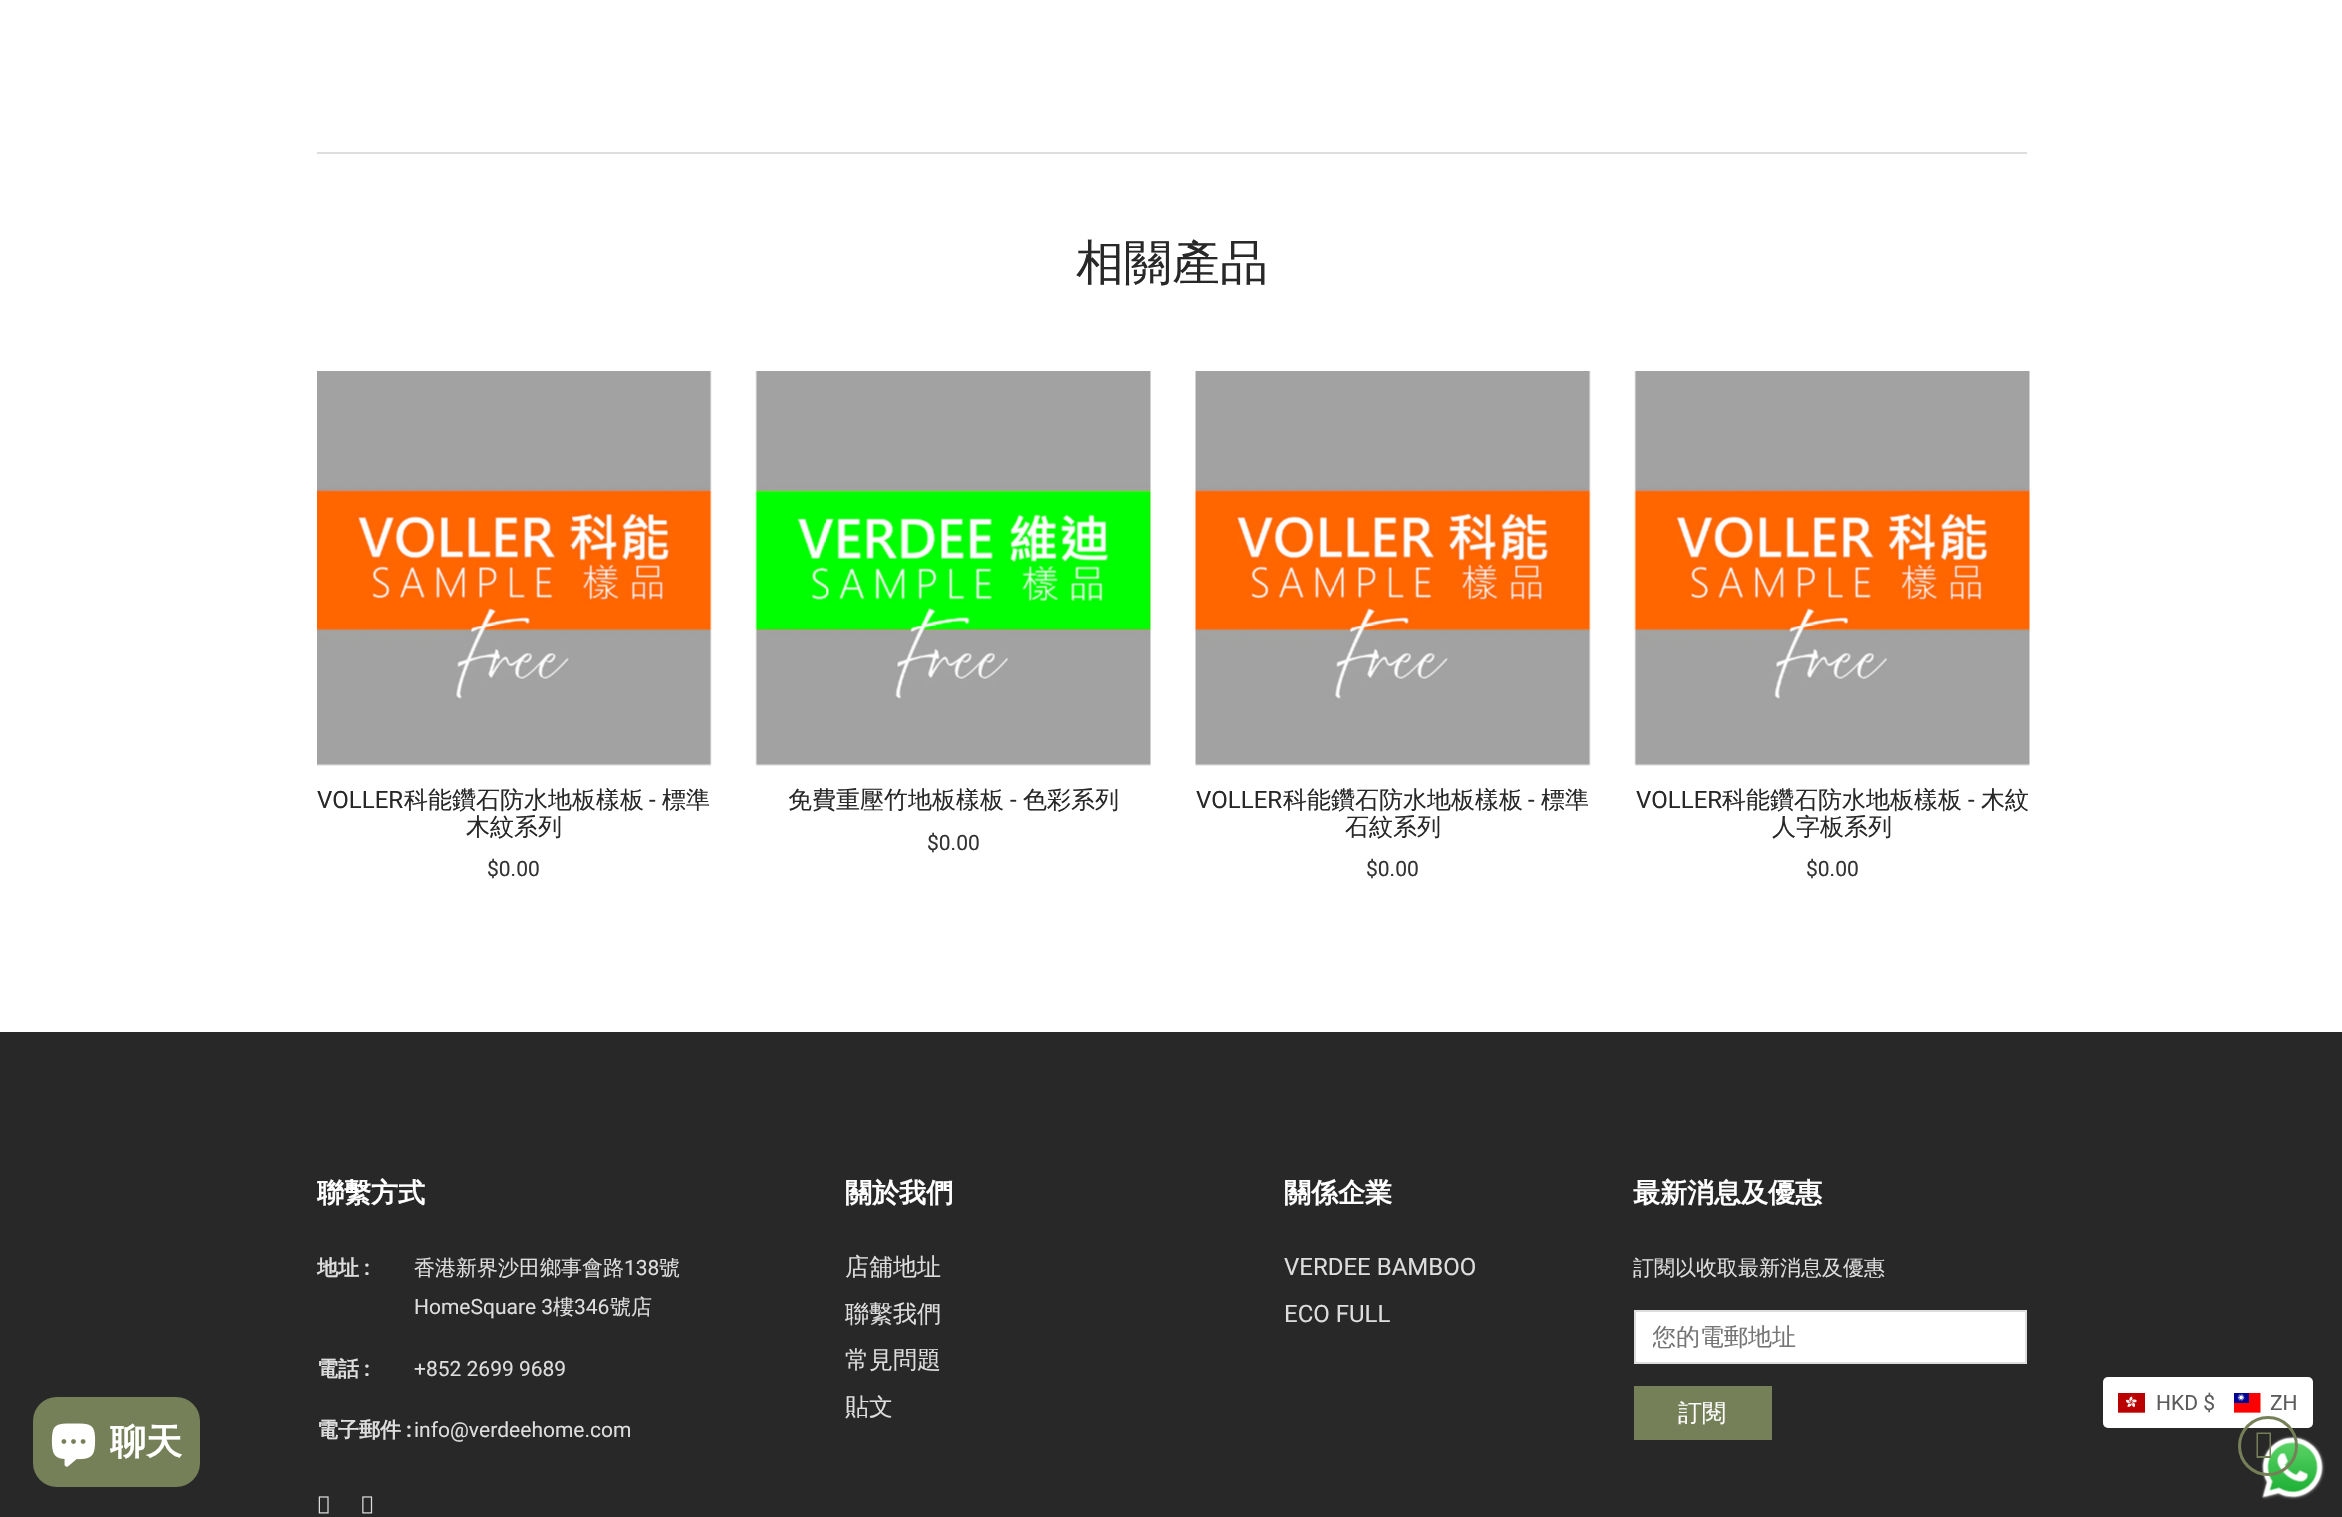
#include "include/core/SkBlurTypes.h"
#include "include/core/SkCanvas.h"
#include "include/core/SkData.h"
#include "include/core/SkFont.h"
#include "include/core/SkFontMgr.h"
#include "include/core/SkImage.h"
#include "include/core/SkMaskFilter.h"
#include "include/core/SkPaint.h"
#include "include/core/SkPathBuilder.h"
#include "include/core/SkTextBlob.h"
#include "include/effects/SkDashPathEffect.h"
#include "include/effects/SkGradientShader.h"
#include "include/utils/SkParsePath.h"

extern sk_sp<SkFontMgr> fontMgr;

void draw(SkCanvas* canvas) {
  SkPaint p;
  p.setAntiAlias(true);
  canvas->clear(SK_ColorWHITE);
  p.setColor(SkColorSetRGB(221, 221, 221));
  canvas->drawRect(SkRect::MakeLTRB(317, 152, 2027, 154), p);
  canvas->drawImageRect(SkImages::DeferredFromEncodedData(SkData::MakeFromFileName("images/1.png")), SkRect::MakeLTRB(317, 371, 712, 766), SkSamplingOptions());
  canvas->drawImageRect(SkImages::DeferredFromEncodedData(SkData::MakeFromFileName("images/2.png")), SkRect::MakeLTRB(755, 371, 1151, 766), SkSamplingOptions());
  canvas->drawImageRect(SkImages::DeferredFromEncodedData(SkData::MakeFromFileName("images/3.png")), SkRect::MakeLTRB(1195, 371, 1591, 766), SkSamplingOptions());
  canvas->drawImageRect(SkImages::DeferredFromEncodedData(SkData::MakeFromFileName("images/4.png")), SkRect::MakeLTRB(1634, 371, 2030, 766), SkSamplingOptions());
  p.setColor(SkColorSetRGB(40, 40, 40));
  canvas->drawRect(SkRect::MakeLTRB(0, 1032, 2342, 1517), p);
  canvas->drawImageRect(SkImages::DeferredFromEncodedData(SkData::MakeFromFileName("images/5.png")), SkRect::MakeLTRB(318, 1496, 329, 1514), SkSamplingOptions());
  canvas->drawImageRect(SkImages::DeferredFromEncodedData(SkData::MakeFromFileName("images/6.png")), SkRect::MakeLTRB(362, 1496, 373, 1514), SkSamplingOptions());
  p.setColor(SK_ColorWHITE);
  canvas->drawRect(SkRect::MakeLTRB(1635, 1311, 2026, 1363), p);
  p.setStyle(SkPaint::kStroke_Style);
  p.setStrokeWidth(2);
  p.setColor(SkColorSetRGB(221, 221, 221));
  canvas->drawRect(SkRect::MakeLTRB(1635, 1311, 2026, 1363), p);
  p.setStyle(SkPaint::kFill_Style);
  p.setColor(SkColorSetRGB(118, 128, 88));
  canvas->drawRect(SkRect::MakeLTRB(1634, 1386, 1772, 1440), p);
  p.setColor(SK_ColorWHITE);
  canvas->drawRoundRect(SkRect::MakeLTRB(2103, 1377, 2313, 1428), 5, 5, p);
  canvas->drawImageRect(SkImages::DeferredFromEncodedData(SkData::MakeFromFileName("images/7.png")), SkRect::MakeLTRB(2118, 1393, 2145, 1413), SkSamplingOptions());
  canvas->drawImageRect(SkImages::DeferredFromEncodedData(SkData::MakeFromFileName("images/8.png")), SkRect::MakeLTRB(2234, 1393, 2261, 1413), SkSamplingOptions());
  p.setColor(SkColorSetRGB(118, 128, 88));
  canvas->drawRoundRect(SkRect::MakeLTRB(33, 1397, 200, 1487), 24, 24, p);
  canvas->drawImageRect(SkImages::DeferredFromEncodedData(SkData::MakeFromFileName("images/9.png")), SkRect::MakeLTRB(51, 1423, 96, 1467), SkSamplingOptions());
  canvas->drawImageRect(SkImages::DeferredFromEncodedData(SkData::MakeFromFileName("images/10.png")), SkRect::MakeLTRB(2261, 1435, 2325, 1500), SkSamplingOptions());
  p.setStyle(SkPaint::kStroke_Style);
  p.setStrokeWidth(3);
  canvas->drawCircle(2268, 1446, 28.5f, p);
  p.setStyle(SkPaint::kFill_Style);
  canvas->drawPath(SkPathBuilder().moveTo(2256.5f, 1458).lineTo(2256.5f, 1432.5f).lineTo(2271, 1432.5f).lineTo(2271, 1458).close().moveTo(2258, 1456).lineTo(2269.5f, 1456).lineTo(2269.5f, 1434).lineTo(2258, 1434).close().detach(), p);
  SkFont font1(fontMgr->matchFamilyStyle("WenQuanYi Zen Hei", SkFontStyle(500, SkFontStyle::kNormal_Width, SkFontStyle::kUpright_Slant)), 48);
  font1.setSubpixel(true);
  p.setColor(SkColorSetRGB(40, 40, 40));
  canvas->drawString("相關產品", 1076, 279, font1, p);
  SkFont font2(fontMgr->matchFamilyStyle("Roboto", SkFontStyle::Normal()), 24);
  font2.setSubpixel(true);
  canvas->drawString("VOLLER", 317, 808, font2, p);
  SkFont font3(fontMgr->matchFamilyStyle("WenQuanYi Zen Hei", SkFontStyle(500, SkFontStyle::kNormal_Width, SkFontStyle::kUpright_Slant)), 24);
  font3.setSubpixel(true);
  canvas->drawString("科能鑽石防水地板樣板", 404, 808, font3, p);
  canvas->drawString("-", 649, 808, font2, p);
  canvas->drawString("標準", 662, 808, font3, p);
  canvas->drawString("木紋系列", 466, 835, font3, p);
  SkFont font4(fontMgr->matchFamilyStyle("Roboto", SkFontStyle::Normal()), 21);
  font4.setSubpixel(true);
  p.setColor(SkColorSetRGB(51, 51, 51));
  canvas->drawString("$0.00", 487, 876, font4, p);
  p.setColor(SkColorSetRGB(40, 40, 40));
  canvas->drawString("免費重壓竹地板樣板", 788, 808, font3, p);
  canvas->drawString("-", 1010, 808, font2, p);
  canvas->drawString("色彩系列", 1023, 808, font3, p);
  p.setColor(SkColorSetRGB(51, 51, 51));
  canvas->drawString("$0.00", 927, 850, font4, p);
  p.setColor(SkColorSetRGB(40, 40, 40));
  canvas->drawString("VOLLER", 1196, 808, font2, p);
  canvas->drawString("科能鑽石防水地板樣板", 1283, 808, font3, p);
  canvas->drawString("-", 1528, 808, font2, p);
  canvas->drawString("標準", 1541, 808, font3, p);
  canvas->drawString("石紋系列", 1345, 835, font3, p);
  p.setColor(SkColorSetRGB(51, 51, 51));
  canvas->drawString("$0.00", 1366, 876, font4, p);
  p.setColor(SkColorSetRGB(40, 40, 40));
  canvas->drawString("VOLLER", 1636, 808, font2, p);
  canvas->drawString("科能鑽石防水地板樣板", 1722, 808, font3, p);
  canvas->drawString("-", 1968, 808, font2, p);
  canvas->drawString("木紋", 1981, 808, font3, p);
  canvas->drawString("人字板系列", 1772, 835, font3, p);
  p.setColor(SkColorSetRGB(51, 51, 51));
  canvas->drawString("$0.00", 1806, 876, font4, p);
  SkFont font5(fontMgr->matchFamilyStyle("WenQuanYi Zen Hei", SkFontStyle::Bold()), 27);
  font5.setSubpixel(true);
  p.setColor(SK_ColorWHITE);
  canvas->drawString("聯繫方式", 317, 1202, font5, p);
  SkFont font6(fontMgr->matchFamilyStyle("WenQuanYi Zen Hei", SkFontStyle::Bold()), 21);
  font6.setSubpixel(true);
  p.setColor(SkColorSetRGB(221, 221, 221));
  canvas->drawString("地址", 317, 1275, font6, p);
  SkFont font7(fontMgr->matchFamilyStyle("Roboto", SkFontStyle::Bold()), 21);
  font7.setSubpixel(true);
  canvas->drawString(":", 364, 1275, font7, p);
  SkFont font8(fontMgr->matchFamilyStyle("WenQuanYi Zen Hei", SkFontStyle(500, SkFontStyle::kNormal_Width, SkFontStyle::kUpright_Slant)), 21);
  font8.setSubpixel(true);
  canvas->drawString("香港新界沙田鄉事會路", 414, 1275, font8, p);
  canvas->drawString("138", 624, 1275, font4, p);
  canvas->drawString("號", 659, 1275, font8, p);
  canvas->drawString("HomeSquare 3", 414, 1314, font4, p);
  canvas->drawString("樓", 553, 1314, font8, p);
  canvas->drawString("346", 574, 1314, font4, p);
  canvas->drawString("號店", 610, 1314, font8, p);
  canvas->drawString("電話", 317, 1376, font6, p);
  canvas->drawString(":", 364, 1376, font7, p);
  canvas->drawString("+852 2699 9689", 414, 1376, font4, p);
  canvas->drawString("電子郵件", 317, 1437, font6, p);
  canvas->drawString(":", 406, 1437, font7, p);
  canvas->drawString("info@verdeehome.com", 414, 1437, font4, p);
  p.setColor(SK_ColorWHITE);
  canvas->drawString("關於我們", 845, 1202, font5, p);
  p.setColor(SkColorSetRGB(221, 221, 221));
  canvas->drawString("店舖地址", 845, 1275, font3, p);
  canvas->drawString("聯繫我們", 845, 1322, font3, p);
  canvas->drawString("常見問題", 845, 1368, font3, p);
  canvas->drawString("貼文", 845, 1415, font3, p);
  p.setColor(SK_ColorWHITE);
  canvas->drawString("關係企業", 1284, 1202, font5, p);
  p.setColor(SkColorSetRGB(221, 221, 221));
  canvas->drawString("VERDEE BAMBOO", 1284, 1275, font2, p);
  canvas->drawString("ECO FULL", 1284, 1322, font2, p);
  p.setColor(SK_ColorWHITE);
  canvas->drawString("最新消息及優惠", 1633, 1202, font5, p);
  p.setColor(SkColorSetRGB(221, 221, 221));
  canvas->drawString("訂閱以收取最新消息及優惠", 1633, 1275, font8, p);
  canvas->save();
  canvas->clipRect(SkRect::MakeLTRB(1653, 1323, 2007, 1355));
  p.setColor(SkColorSetRGB(117, 117, 117));
  canvas->drawString("您的電郵地址", 1652, 1345, font3, p);
  canvas->restore();
  p.setColor(SK_ColorWHITE);
  canvas->drawString("訂閱", 1678, 1421, font3, p);
  p.setColor(SkColorSetRGB(92, 92, 92));
  canvas->drawString("HKD $", 2156, 1410, font4, p);
  canvas->drawString("ZH", 2270, 1410, font4, p);
  canvas->save();
  canvas->clipRect(SkRect::MakeLTRB(110, 1419, 182, 1464));
  SkFont font9(fontMgr->matchFamilyStyle("WenQuanYi Zen Hei", SkFontStyle::Bold()), 36);
  font9.setSubpixel(true);
  p.setColor(SK_ColorWHITE);
  canvas->drawString("聊天", 110, 1454, font9, p);
  canvas->restore();
}
